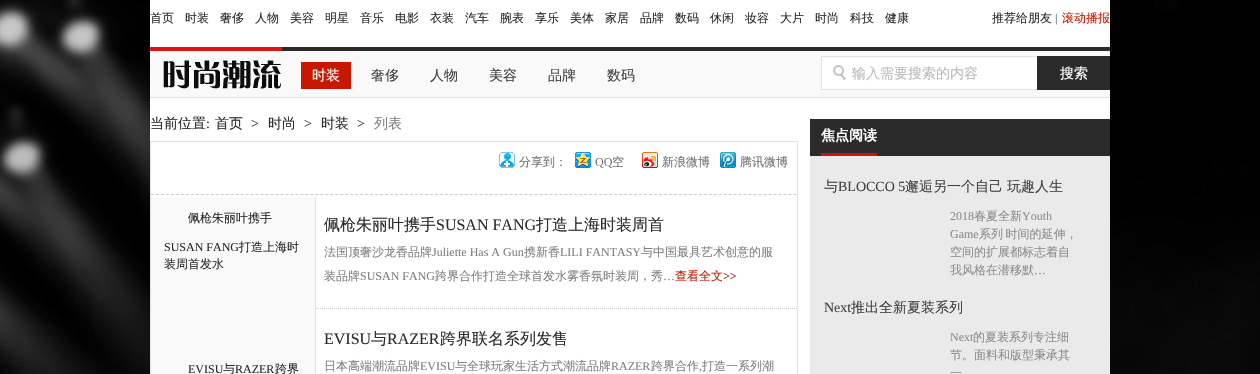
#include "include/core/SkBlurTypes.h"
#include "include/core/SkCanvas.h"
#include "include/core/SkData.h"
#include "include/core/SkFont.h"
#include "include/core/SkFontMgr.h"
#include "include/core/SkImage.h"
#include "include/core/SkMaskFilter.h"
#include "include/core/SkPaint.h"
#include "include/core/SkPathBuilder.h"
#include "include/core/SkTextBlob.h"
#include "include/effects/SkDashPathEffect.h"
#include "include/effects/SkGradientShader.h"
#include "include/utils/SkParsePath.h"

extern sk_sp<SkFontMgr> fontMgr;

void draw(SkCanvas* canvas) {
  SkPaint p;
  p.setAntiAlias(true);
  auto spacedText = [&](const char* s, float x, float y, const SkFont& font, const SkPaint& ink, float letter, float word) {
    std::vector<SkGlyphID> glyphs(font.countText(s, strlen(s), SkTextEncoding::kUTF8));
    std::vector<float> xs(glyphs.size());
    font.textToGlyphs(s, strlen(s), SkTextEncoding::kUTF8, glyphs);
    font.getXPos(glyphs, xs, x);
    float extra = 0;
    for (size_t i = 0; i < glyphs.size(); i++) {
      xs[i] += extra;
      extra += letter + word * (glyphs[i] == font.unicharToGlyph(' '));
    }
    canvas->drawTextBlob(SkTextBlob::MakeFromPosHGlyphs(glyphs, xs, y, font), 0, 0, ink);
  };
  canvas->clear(SK_ColorWHITE);
  canvas->drawImageRect(SkImages::DeferredFromEncodedData(SkData::MakeFromFileName("images/1.png")), SkRect::MakeLTRB(0, 0, 1260, 374), SkSamplingOptions());
  p.setColor(SK_ColorWHITE);
  canvas->drawRect(SkRect::MakeLTRB(150, 0, 1110, 374), p);
  canvas->drawImageRect(SkImages::DeferredFromEncodedData(SkData::MakeFromFileName("images/2.png")), SkRect::MakeLTRB(150, 47, 1110, 97), SkSamplingOptions());
  p.setColor(SkColorSetRGB(224, 224, 224));
  canvas->drawRect(SkRect::MakeLTRB(150, 97, 1110, 98), p);
  p.setColor(SkColorSetRGB(200, 24, 1));
  canvas->drawRect(SkRect::MakeLTRB(301, 62, 351, 89), p);
  p.setColor(SK_ColorWHITE);
  canvas->drawRect(SkRect::MakeLTRB(822, 57, 1037, 89), p);
  canvas->drawImageRect(SkImages::DeferredFromEncodedData(SkData::MakeFromFileName("images/3.png")), SkRect::MakeLTRB(833, 65, 846, 80), SkSamplingOptions());
  p.setColor(SkColorSetRGB(224, 224, 224));
  canvas->drawRect(SkRect::MakeLTRB(821, 56, 1037, 57), p);
  canvas->drawRect(SkRect::MakeLTRB(821, 89, 1037, 90), p);
  canvas->drawRect(SkRect::MakeLTRB(821, 56, 822, 90), p);
  p.setColor(SkColorSetRGB(43, 43, 43));
  canvas->drawRect(SkRect::MakeLTRB(1037, 56, 1110, 90), p);
  p.setStyle(SkPaint::kStroke_Style);
  p.setStrokeWidth(1);
  p.setColor(SkColorSetRGB(224, 224, 224));
  canvas->drawRect(SkRect::MakeLTRB(150.5f, 141.5f, 797.5f, 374.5f), p);
  canvas->drawImageRect(SkImages::DeferredFromEncodedData(SkData::MakeFromFileName("images/4.png")), SkRect::MakeLTRB(499, 152, 515, 168), SkSamplingOptions());
  canvas->drawImageRect(SkImages::DeferredFromEncodedData(SkData::MakeFromFileName("images/5.png")), SkRect::MakeLTRB(575, 152, 591, 168), SkSamplingOptions());
  canvas->drawImageRect(SkImages::DeferredFromEncodedData(SkData::MakeFromFileName("images/6.png")), SkRect::MakeLTRB(642, 152, 658, 168), SkSamplingOptions());
  canvas->drawImageRect(SkImages::DeferredFromEncodedData(SkData::MakeFromFileName("images/7.png")), SkRect::MakeLTRB(720, 152, 736, 168), SkSamplingOptions());
  p.setColor(SkColorSetRGB(204, 204, 204));
  p.setPathEffect(SkDashPathEffect::Make({{3, 1.98f}}, 0));
  canvas->drawPath(SkPathBuilder().moveTo(151, 194.5f).lineTo(797, 194.5f).detach(), p);
  p.setPathEffect(nullptr);
  p.setStyle(SkPaint::kFill_Style);
  p.setColor(SkColorSetRGB(249, 249, 249));
  canvas->drawRect(SkRect::MakeLTRB(151, 197, 315, 374), p);
  p.setColor(SkColorSetRGB(224, 224, 224));
  canvas->drawRect(SkRect::MakeLTRB(315, 197, 316, 374), p);
  p.setStyle(SkPaint::kStroke_Style);
  p.setColor(SkColorSetRGB(204, 204, 204));
  p.setPathEffect(SkDashPathEffect::Make({{1, 1}}, 0));
  canvas->drawPath(SkPathBuilder().moveTo(316, 308.5f).lineTo(797, 308.5f).detach(), p);
  p.setPathEffect(nullptr);
  p.setStyle(SkPaint::kFill_Style);
  p.setColor(SkColorSetRGB(234, 234, 234));
  canvas->drawRect(SkRect::MakeLTRB(810, 156, 1110, 374), p);
  p.setColor(SkColorSetRGB(43, 43, 43));
  canvas->drawRect(SkRect::MakeLTRB(810, 119, 1110, 156), p);
  p.setColor(SkColorSetRGB(200, 24, 1));
  canvas->drawRect(SkRect::MakeLTRB(821, 153, 877, 156), p);
  SkFont font1(fontMgr->matchFamilyStyle("WenQuanYi Zen Hei", SkFontStyle(500, SkFontStyle::kNormal_Width, SkFontStyle::kUpright_Slant)), 12);
  font1.setSubpixel(true);
  p.setColor(SkColorSetRGB(43, 43, 43));
  canvas->drawString("首页", 150, 22, font1, p);
  canvas->drawString("时装", 185, 22, font1, p);
  canvas->drawString("奢侈", 220, 22, font1, p);
  canvas->drawString("人物", 255, 22, font1, p);
  canvas->drawString("美容", 290, 22, font1, p);
  canvas->drawString("明星", 325, 22, font1, p);
  canvas->drawString("音乐", 360, 22, font1, p);
  canvas->drawString("电影", 395, 22, font1, p);
  canvas->drawString("衣装", 430, 22, font1, p);
  canvas->drawString("汽车", 465, 22, font1, p);
  canvas->drawString("腕表", 500, 22, font1, p);
  canvas->drawString("享乐", 535, 22, font1, p);
  canvas->drawString("美体", 570, 22, font1, p);
  canvas->drawString("家居", 605, 22, font1, p);
  canvas->drawString("品牌", 640, 22, font1, p);
  canvas->drawString("数码", 675, 22, font1, p);
  canvas->drawString("休闲", 710, 22, font1, p);
  canvas->drawString("妆容", 745, 22, font1, p);
  canvas->drawString("大片", 780, 22, font1, p);
  canvas->drawString("时尚", 815, 22, font1, p);
  canvas->drawString("科技", 850, 22, font1, p);
  canvas->drawString("健康", 885, 22, font1, p);
  canvas->drawString("推荐给朋友", 992, 22, font1, p);
  SkFont font2(fontMgr->matchFamilyStyle("Liberation Serif", SkFontStyle::Normal()), 12);
  font2.setSubpixel(true);
  p.setColor(SkColorSetRGB(85, 85, 85));
  canvas->drawString("|", 1055, 22, font2, p);
  p.setColor(SkColorSetRGB(200, 24, 1));
  canvas->drawString("滚动播报", 1062, 22, font1, p);
  SkFont font3(fontMgr->matchFamilyStyle("WenQuanYi Zen Hei", SkFontStyle(500, SkFontStyle::kNormal_Width, SkFontStyle::kUpright_Slant)), 14);
  font3.setSubpixel(true);
  p.setColor(SK_ColorWHITE);
  canvas->drawString("时装", 312, 80, font3, p);
  p.setColor(SkColorSetRGB(64, 64, 64));
  canvas->drawString("奢侈", 371, 80, font3, p);
  canvas->drawString("人物", 430, 80, font3, p);
  canvas->drawString("美容", 489, 80, font3, p);
  canvas->drawString("品牌", 548, 80, font3, p);
  canvas->drawString("数码", 607, 80, font3, p);
  p.setColor(SkColorSetRGB(186, 186, 186));
  canvas->drawString("输入需要搜索的内容", 852, 78, font3, p);
  p.setColor(SK_ColorWHITE);
  canvas->drawString("搜索", 1060, 78, font3, p);
  p.setColor(SkColorSetRGB(43, 43, 43));
  canvas->drawString("当前位置", 150, 128, font3, p);
  SkFont font4(fontMgr->matchFamilyStyle("Liberation Serif", SkFontStyle::Normal()), 14);
  font4.setSubpixel(true);
  canvas->drawString(":", 206, 128, font4, p);
  canvas->drawString("首页", 215, 128, font3, p);
  canvas->drawString(">", 251, 128, font4, p);
  canvas->drawString("时尚", 268, 128, font3, p);
  canvas->drawString(">", 304, 128, font4, p);
  canvas->drawString("时装", 321, 128, font3, p);
  canvas->drawString(">", 357, 128, font4, p);
  p.setColor(SkColorSetRGB(128, 128, 128));
  canvas->drawString("列表", 374, 128, font3, p);
  p.setColor(SkColorSetRGB(114, 114, 114));
  canvas->drawString("分享到：", 519, 166, font1, p);
  canvas->drawString("QQ", 595, 166, font2, p);
  canvas->drawString("空", 612, 166, font1, p);
  canvas->drawString("新浪微博", 662, 166, font1, p);
  canvas->drawString("腾讯微博", 740, 166, font1, p);
  p.setColor(SkColorSetRGB(43, 43, 43));
  canvas->drawString("佩枪朱丽叶携手", 188, 222, font1, p);
  canvas->drawString("SUSAN FANG", 164, 251, font2, p);
  canvas->drawString("打造上海时", 239, 251, font1, p);
  canvas->drawString("装周首发水", 164, 268, font1, p);
  canvas->drawString("EVISU", 188, 373, font2, p);
  canvas->drawString("与", 223, 373, font1, p);
  canvas->drawString("RAZER", 235, 373, font2, p);
  canvas->drawString("跨界", 275, 373, font1, p);
  SkFont font5(fontMgr->matchFamilyStyle("WenQuanYi Zen Hei", SkFontStyle(500, SkFontStyle::kNormal_Width, SkFontStyle::kUpright_Slant)), 16);
  font5.setSubpixel(true);
  canvas->drawString("佩枪朱丽叶携手", 324, 230, font5, p);
  SkFont font6(fontMgr->matchFamilyStyle("Liberation Serif", SkFontStyle::Normal()), 16);
  font6.setSubpixel(true);
  canvas->drawString("SUSAN FANG", 436, 230, font6, p);
  canvas->drawString("打造上海时装周首", 536, 230, font5, p);
  p.setColor(SkColorSetRGB(128, 128, 128));
  canvas->drawString("法国顶奢沙龙香品牌", 324, 256, font1, p);
  canvas->drawString("Juliette Has A Gun", 432, 256, font2, p);
  canvas->drawString("携新香", 524, 256, font1, p);
  canvas->drawString("LILI FANTASY", 560, 256, font2, p);
  canvas->drawString("与中国最具艺术创意的服", 641, 256, font1, p);
  canvas->drawString("装品牌", 324, 280, font1, p);
  canvas->drawString("SUSAN FANG", 360, 280, font2, p);
  canvas->drawString("跨界合作打造全球首发水雾香氛时装周，秀", 435, 280, font1, p);
  p.setColor(SkColorSetRGB(200, 24, 1));
  canvas->drawString("查看全文", 675, 280, font1, p);
  canvas->drawString(">>", 723, 280, font2, p);
  p.setColor(SkColorSetRGB(128, 128, 128));
  canvas->drawString("…", 663, 280, font2, p);
  p.setColor(SkColorSetRGB(43, 43, 43));
  canvas->drawString("EVISU", 324, 344, font6, p);
  canvas->drawString("与", 371, 344, font5, p);
  canvas->drawString("RAZER", 387, 344, font6, p);
  canvas->drawString("跨界联名系列发售", 440, 344, font5, p);
  p.setColor(SkColorSetRGB(128, 128, 128));
  canvas->drawString("日本高端潮流品牌", 324, 370, font1, p);
  canvas->drawString("EVISU", 420, 370, font2, p);
  canvas->drawString("与全球玩家生活方式潮流品牌", 455, 370, font1, p);
  canvas->drawString("RAZER", 611, 370, font2, p);
  canvas->drawString("跨界合作", 651, 370, font1, p);
  canvas->drawString(",", 699, 370, font2, p);
  canvas->drawString("打造一系列潮", 702, 370, font1, p);
  SkFont font7(fontMgr->matchFamilyStyle("WenQuanYi Zen Hei", SkFontStyle::Bold()), 14);
  font7.setSubpixel(true);
  p.setColor(SK_ColorWHITE);
  canvas->drawString("焦点阅读", 821, 140, font7, p);
  p.setColor(SkColorSetRGB(64, 64, 64));
  canvas->drawString("与", 824, 191, font3, p);
  canvas->drawString("BLOCCO 5", 838, 191, font4, p);
  canvas->drawString("邂逅另一个自己", 905, 191, font3, p);
  canvas->drawString("玩趣人生", 1007, 191, font3, p);
  p.setColor(SkColorSetRGB(141, 141, 141));
  canvas->drawString("2018", 950, 220, font2, p);
  canvas->drawString("春夏全新", 974, 220, font1, p);
  canvas->drawString("Youth", 1022, 220, font2, p);
  canvas->drawString("Game", 950, 238, font2, p);
  spacedText("系列 时间的延伸，", 979, 238, font1, p, 0, -1);
  canvas->drawString("空间的扩展都标志着自", 950, 256, font1, p);
  canvas->drawString("我风格在潜移默", 950, 274, font1, p);
  canvas->drawString("…", 1034, 274, font2, p);
  p.setColor(SkColorSetRGB(64, 64, 64));
  canvas->drawString("Next", 824, 312, font4, p);
  canvas->drawString("推出全新夏装系列", 851, 312, font3, p);
  p.setColor(SkColorSetRGB(141, 141, 141));
  canvas->drawString("Next", 950, 341, font2, p);
  canvas->drawString("的夏装系列专注细", 973, 341, font1, p);
  canvas->drawString("节。面料和版型秉承其", 950, 359, font1, p);
  canvas->drawString("一", 950, 377, font1, p);
}
